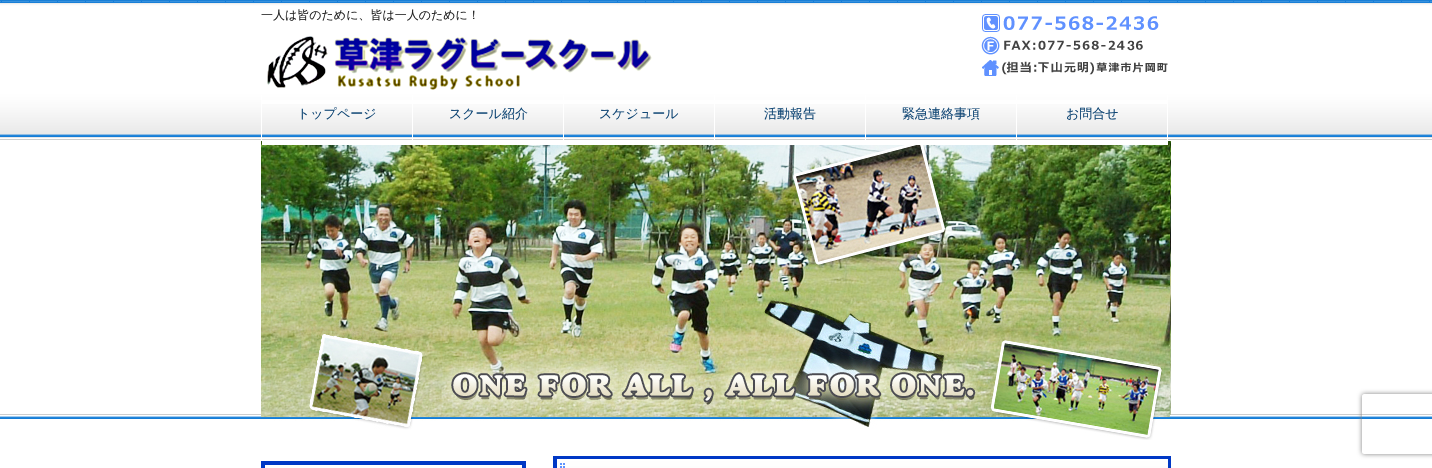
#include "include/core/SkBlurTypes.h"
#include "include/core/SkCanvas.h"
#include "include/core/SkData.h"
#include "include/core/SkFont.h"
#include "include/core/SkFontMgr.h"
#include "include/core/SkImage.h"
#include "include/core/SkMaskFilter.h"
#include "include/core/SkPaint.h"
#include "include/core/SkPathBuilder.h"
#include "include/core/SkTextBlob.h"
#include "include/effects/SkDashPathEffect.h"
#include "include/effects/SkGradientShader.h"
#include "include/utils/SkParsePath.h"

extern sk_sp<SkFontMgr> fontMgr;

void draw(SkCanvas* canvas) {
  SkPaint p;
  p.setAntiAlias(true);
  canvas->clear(SK_ColorWHITE);
  canvas->drawImageRect(SkImages::DeferredFromEncodedData(SkData::MakeFromFileName("images/1.png")), SkRect::MakeLTRB(0, 0, 1432, 419), SkSamplingOptions());
  canvas->drawImageRect(SkImages::DeferredFromEncodedData(SkData::MakeFromFileName("images/2.png")), SkRect::MakeLTRB(981, 14, 1168, 76), SkSamplingOptions());
  canvas->drawImageRect(SkImages::DeferredFromEncodedData(SkData::MakeFromFileName("images/3.png")), SkRect::MakeLTRB(267, 36, 652, 90), SkSamplingOptions());
  p.setColor(SK_ColorWHITE);
  canvas->drawRect(SkRect::MakeLTRB(261, 95, 262, 145), p);
  canvas->drawImageRect(SkImages::DeferredFromEncodedData(SkData::MakeFromFileName("images/5.png")), SkRect::MakeLTRB(261, 141, 1171, 440), SkSamplingOptions());
  canvas->drawRect(SkRect::MakeLTRB(262, 100, 412, 145), p);
  canvas->drawImageRect(SkImages::DeferredFromEncodedData(SkData::MakeFromFileName("images/4.png")), SkRect::MakeLTRB(262, 104, 412, 140), SkSamplingOptions());
  canvas->drawRect(SkRect::MakeLTRB(412, 95, 413, 145), p);
  canvas->drawRect(SkRect::MakeLTRB(413, 100, 563, 145), p);
  canvas->drawImageRect(SkImages::DeferredFromEncodedData(SkData::MakeFromFileName("images/4.png")), SkRect::MakeLTRB(413, 104, 563, 140), SkSamplingOptions());
  canvas->drawRect(SkRect::MakeLTRB(563, 95, 564, 145), p);
  canvas->drawRect(SkRect::MakeLTRB(564, 100, 714, 145), p);
  canvas->drawImageRect(SkImages::DeferredFromEncodedData(SkData::MakeFromFileName("images/4.png")), SkRect::MakeLTRB(564, 104, 714, 140), SkSamplingOptions());
  canvas->drawRect(SkRect::MakeLTRB(714, 95, 715, 145), p);
  canvas->drawRect(SkRect::MakeLTRB(715, 100, 865, 145), p);
  canvas->drawImageRect(SkImages::DeferredFromEncodedData(SkData::MakeFromFileName("images/4.png")), SkRect::MakeLTRB(715, 104, 865, 140), SkSamplingOptions());
  canvas->drawRect(SkRect::MakeLTRB(865, 95, 866, 145), p);
  canvas->drawRect(SkRect::MakeLTRB(866, 100, 1016, 145), p);
  canvas->drawImageRect(SkImages::DeferredFromEncodedData(SkData::MakeFromFileName("images/4.png")), SkRect::MakeLTRB(866, 104, 1016, 140), SkSamplingOptions());
  canvas->drawRect(SkRect::MakeLTRB(1016, 95, 1017, 145), p);
  canvas->drawRect(SkRect::MakeLTRB(1017, 100, 1167, 145), p);
  canvas->drawImageRect(SkImages::DeferredFromEncodedData(SkData::MakeFromFileName("images/4.png")), SkRect::MakeLTRB(1017, 104, 1167, 140), SkSamplingOptions());
  canvas->drawRect(SkRect::MakeLTRB(1167, 95, 1168, 145), p);
  canvas->drawImageRect(SkImages::DeferredFromEncodedData(SkData::MakeFromFileName("images/6.png")), SkRect::MakeLTRB(261, 461, 526, 468), SkSamplingOptions());
  canvas->drawImageRect(SkImages::DeferredFromEncodedData(SkData::MakeFromFileName("images/7.png")), SkRect::MakeLTRB(553, 456, 1171, 468), SkSamplingOptions());
  canvas->save();
  canvas->clipPath(SkPathBuilder(SkPathFillType::kEvenOdd).moveTo(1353, 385).lineTo(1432, 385).lineTo(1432, 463).lineTo(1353, 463).close().moveTo(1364, 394).lineTo(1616, 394).cubicTo(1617, 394, 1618, 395, 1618, 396).lineTo(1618, 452).cubicTo(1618, 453, 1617, 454, 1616, 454).lineTo(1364, 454).cubicTo(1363, 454, 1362, 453, 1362, 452).lineTo(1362, 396).cubicTo(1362, 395, 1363, 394, 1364, 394).close().detach(), true);
  p.setColor(SkColorSetRGB(128, 128, 128));
  p.setMaskFilter(SkMaskFilter::MakeBlur(kNormal_SkBlurStyle, 2.5f));
  canvas->drawRoundRect(SkRect::MakeLTRB(1362, 394, 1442, 454), 2, 2, p);
  p.setMaskFilter(nullptr);
  canvas->restore();
  SkFont font1(fontMgr->matchFamilyStyle("WenQuanYi Zen Hei", SkFontStyle(500, SkFontStyle::kNormal_Width, SkFontStyle::kUpright_Slant)), 12);
  font1.setSubpixel(true);
  p.setColor(SkColorSetRGB(37, 37, 37));
  canvas->drawString("一人は皆のために、皆は一人のために！", 261, 19, font1, p);
  SkFont font2(fontMgr->matchFamilyStyle("WenQuanYi Zen Hei", SkFontStyle(500, SkFontStyle::kNormal_Width, SkFontStyle::kUpright_Slant)), 13);
  font2.setSubpixel(true);
  p.setColor(SkColorSetRGB(18, 72, 118));
  canvas->drawString("トップページ", 297, 118, font2, p);
  canvas->drawString("スクール紹介", 449, 118, font2, p);
  canvas->drawString("スケジュール", 599, 118, font2, p);
  canvas->drawString("活動報告", 764, 118, font2, p);
  canvas->drawString("緊急連絡事項", 902, 118, font2, p);
  canvas->drawString("お問合せ", 1066, 118, font2, p);
}
